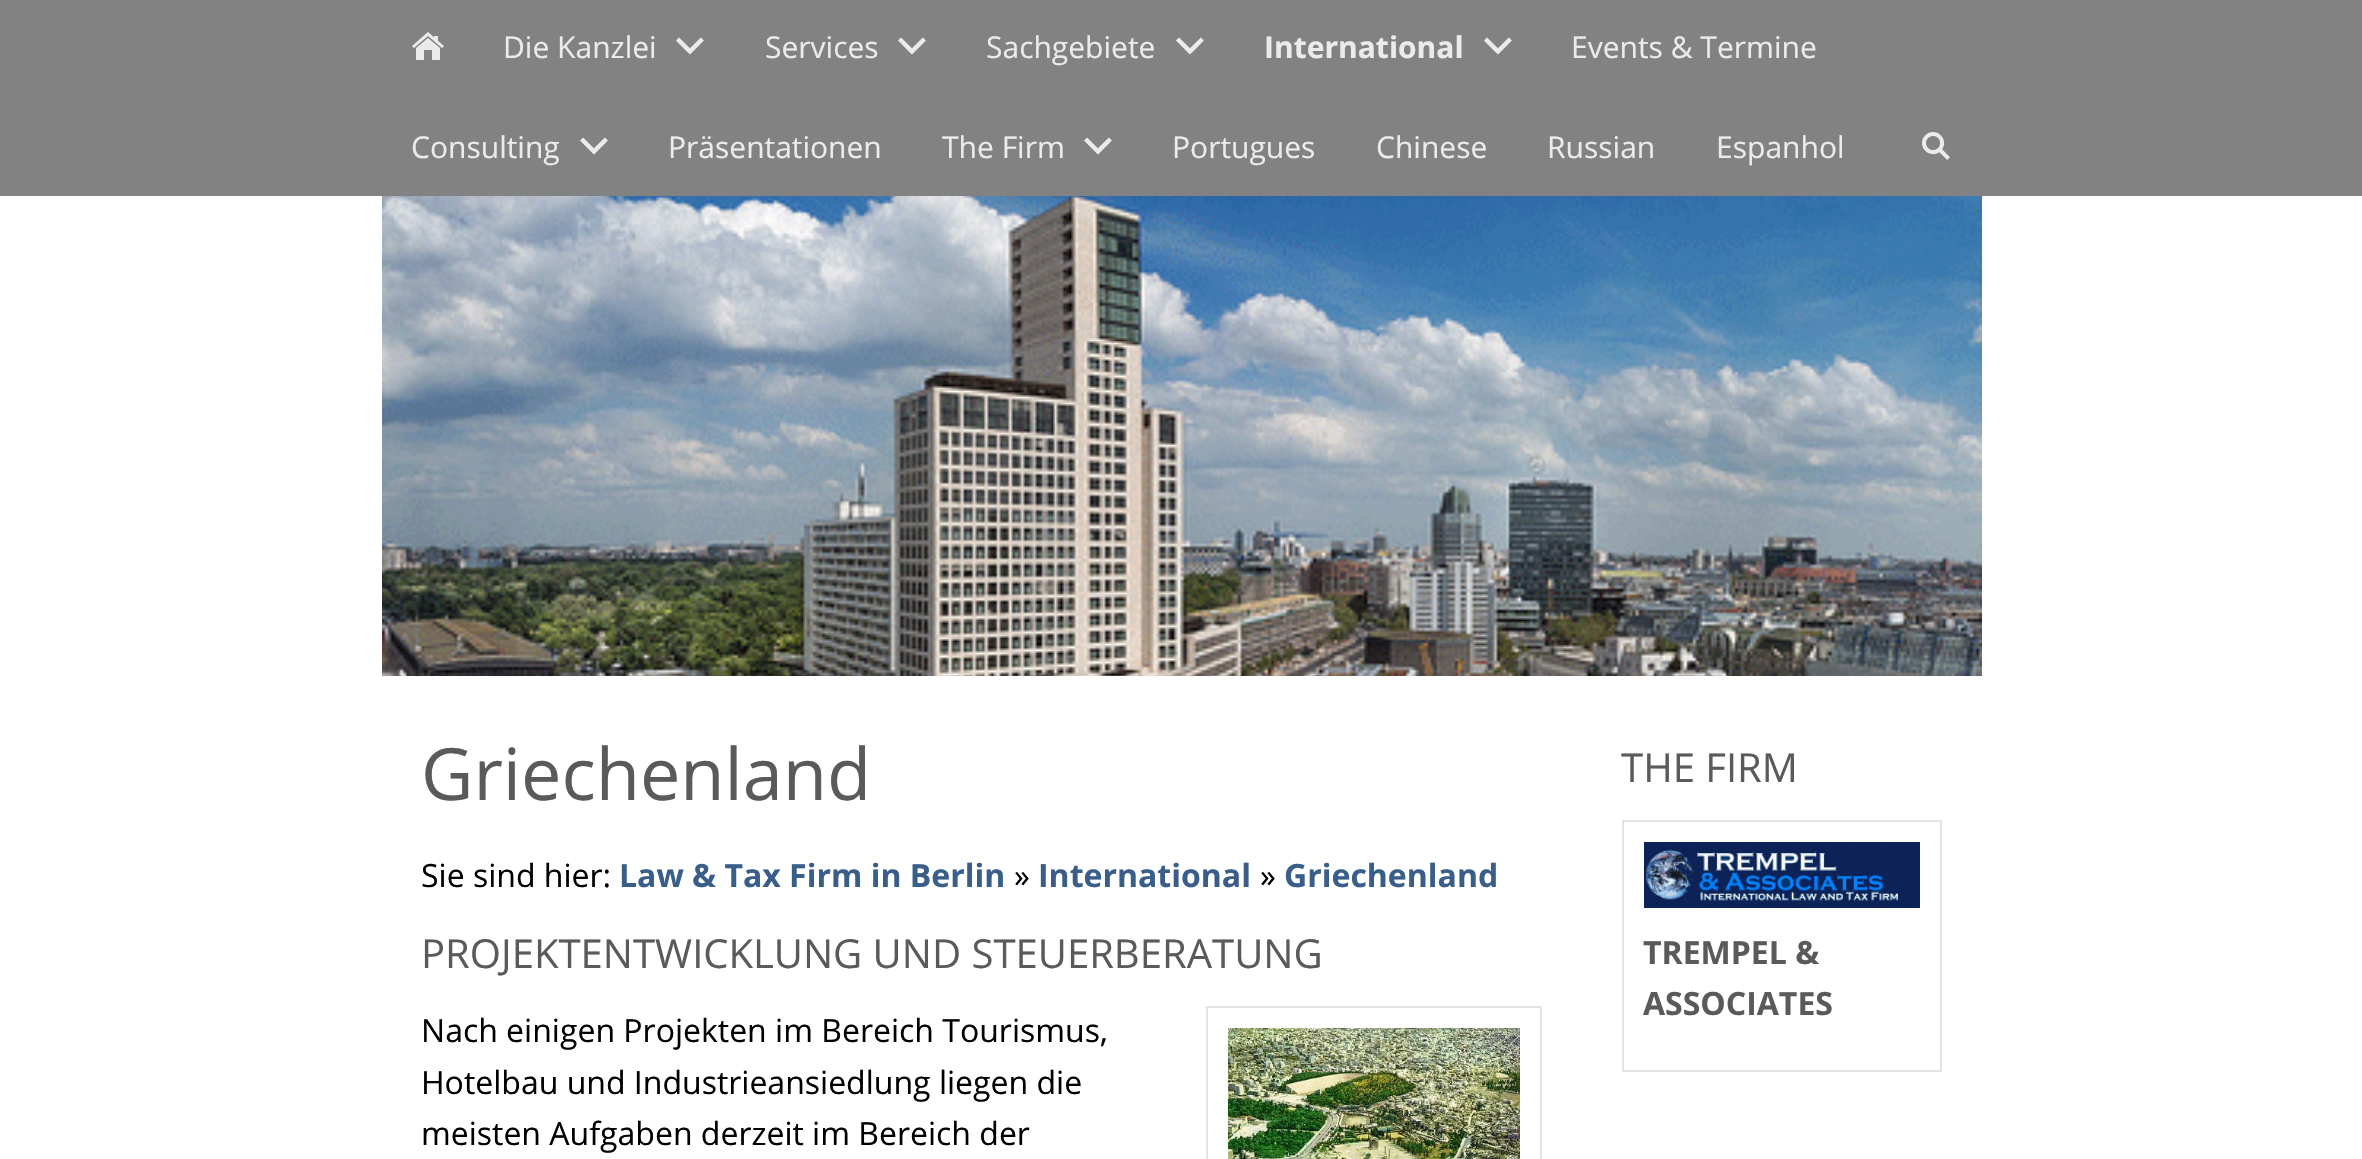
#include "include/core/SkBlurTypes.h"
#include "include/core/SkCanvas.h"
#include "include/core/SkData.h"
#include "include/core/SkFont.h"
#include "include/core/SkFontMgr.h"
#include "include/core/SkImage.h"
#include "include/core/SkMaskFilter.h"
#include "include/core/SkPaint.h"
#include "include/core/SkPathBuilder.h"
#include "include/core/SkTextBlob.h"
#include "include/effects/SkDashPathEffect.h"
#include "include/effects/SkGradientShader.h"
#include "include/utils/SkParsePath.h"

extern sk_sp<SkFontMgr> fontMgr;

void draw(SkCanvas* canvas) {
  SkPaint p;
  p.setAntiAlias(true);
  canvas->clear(SK_ColorWHITE);
  p.setColor(SkColorSetRGB(130, 130, 130));
  canvas->drawRect(SkRect::MakeLTRB(0, 0, 2362, 196), p);
  canvas->drawImageRect(SkImages::DeferredFromEncodedData(SkData::MakeFromFileName("images/1.png")), SkRect::MakeLTRB(412, 32, 444, 60), SkSamplingOptions());
  canvas->drawImageRect(SkImages::DeferredFromEncodedData(SkData::MakeFromFileName("images/2.png")), SkRect::MakeLTRB(676, 37, 704, 55), SkSamplingOptions());
  canvas->drawImageRect(SkImages::DeferredFromEncodedData(SkData::MakeFromFileName("images/2.png")), SkRect::MakeLTRB(898, 37, 926, 55), SkSamplingOptions());
  canvas->drawImageRect(SkImages::DeferredFromEncodedData(SkData::MakeFromFileName("images/2.png")), SkRect::MakeLTRB(1176, 37, 1204, 55), SkSamplingOptions());
  canvas->drawImageRect(SkImages::DeferredFromEncodedData(SkData::MakeFromFileName("images/2.png")), SkRect::MakeLTRB(1484, 37, 1512, 55), SkSamplingOptions());
  canvas->drawImageRect(SkImages::DeferredFromEncodedData(SkData::MakeFromFileName("images/2.png")), SkRect::MakeLTRB(580, 137, 608, 155), SkSamplingOptions());
  canvas->drawImageRect(SkImages::DeferredFromEncodedData(SkData::MakeFromFileName("images/2.png")), SkRect::MakeLTRB(1084, 137, 1112, 155), SkSamplingOptions());
  canvas->drawImageRect(SkImages::DeferredFromEncodedData(SkData::MakeFromFileName("images/3.png")), SkRect::MakeLTRB(1922, 132, 1950, 160), SkSamplingOptions());
  canvas->drawImageRect(SkImages::DeferredFromEncodedData(SkData::MakeFromFileName("images/4.png")), SkRect::MakeLTRB(382, 196, 1982, 676), SkSamplingOptions());
  p.setStyle(SkPaint::kStroke_Style);
  p.setStrokeWidth(2);
  p.setColor(SkColorSetRGB(227, 227, 227));
  canvas->drawRect(SkRect::MakeLTRB(1207, 1007, 1541, 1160), p);
  canvas->drawImageRect(SkImages::DeferredFromEncodedData(SkData::MakeFromFileName("images/5.png")), SkRect::MakeLTRB(1228, 1028, 1520, 1159), SkSamplingOptions());
  canvas->drawRect(SkRect::MakeLTRB(1623, 821, 1941, 1071), p);
  canvas->drawImageRect(SkImages::DeferredFromEncodedData(SkData::MakeFromFileName("images/6.png")), SkRect::MakeLTRB(1644, 842, 1920, 908), SkSamplingOptions());
  SkFont font1(fontMgr->matchFamilyStyle("Open Sans", SkFontStyle::Normal()), 30);
  font1.setSubpixel(true);
  p.setStyle(SkPaint::kFill_Style);
  p.setColor(SkColorSetRGB(235, 235, 235));
  canvas->drawString("Die Kanzlei", 503, 58, font1, p);
  canvas->drawString("Services", 765, 58, font1, p);
  canvas->drawString("Sachgebiete", 986, 58, font1, p);
  SkFont font2(fontMgr->matchFamilyStyle("Open Sans", SkFontStyle::Bold()), 30);
  font2.setSubpixel(true);
  canvas->drawString("International", 1264, 58, font2, p);
  canvas->drawString("Events & Termine", 1571, 58, font1, p);
  canvas->drawString("Consulting", 411, 158, font1, p);
  canvas->drawString("Präsentationen", 668, 158, font1, p);
  canvas->drawString("The Firm", 942, 158, font1, p);
  canvas->drawString("Portugues", 1172, 158, font1, p);
  canvas->drawString("Chinese", 1376, 158, font1, p);
  canvas->drawString("Russian", 1547, 158, font1, p);
  canvas->drawString("Espanhol", 1716, 158, font1, p);
  SkFont font3(fontMgr->matchFamilyStyle("Open Sans", SkFontStyle::Normal()), 72);
  font3.setSubpixel(true);
  p.setColor(SkColorSetRGB(90, 90, 90));
  canvas->drawString("Griechenland", 421, 800, font3, p);
  SkFont font4(fontMgr->matchFamilyStyle("Open Sans", SkFontStyle::Normal()), 32);
  font4.setSubpixel(true);
  p.setColor(SK_ColorBLACK);
  canvas->drawString("Sie sind hier:", 421, 887, font4, p);
  SkFont font5(fontMgr->matchFamilyStyle("Open Sans", SkFontStyle::Bold()), 32);
  font5.setSubpixel(true);
  p.setColor(SkColorSetRGB(57, 94, 138));
  canvas->drawString("Law & Tax Firm in Berlin", 619, 887, font5, p);
  p.setColor(SK_ColorBLACK);
  canvas->drawString("»", 1014, 887, font4, p);
  p.setColor(SkColorSetRGB(57, 94, 138));
  canvas->drawString("International", 1038, 887, font5, p);
  p.setColor(SK_ColorBLACK);
  canvas->drawString("»", 1260, 887, font4, p);
  p.setColor(SkColorSetRGB(57, 94, 138));
  canvas->drawString("Griechenland", 1284, 887, font5, p);
  SkFont font6(fontMgr->matchFamilyStyle("Open Sans", SkFontStyle::Normal()), 40);
  font6.setSubpixel(true);
  p.setColor(SkColorSetRGB(90, 90, 90));
  canvas->drawString("PROJEKTENTWICKLUNG UND STEUERBERATUNG", 421, 968, font6, p);
  p.setColor(SK_ColorBLACK);
  canvas->drawString("Nach einigen Projekten im Bereich Tourismus,", 421, 1042, font4, p);
  canvas->drawString("Hotelbau und Industrieansiedlung liegen die", 421, 1094, font4, p);
  canvas->drawString("meisten Aufgaben derzeit im Bereich der", 421, 1145, font4, p);
  p.setColor(SkColorSetRGB(90, 90, 90));
  canvas->drawString("THE FIRM", 1621, 782, font6, p);
  canvas->drawString("TREMPEL &", 1643, 964, font5, p);
  canvas->drawString("ASSOCIATES", 1643, 1015, font5, p);
}
